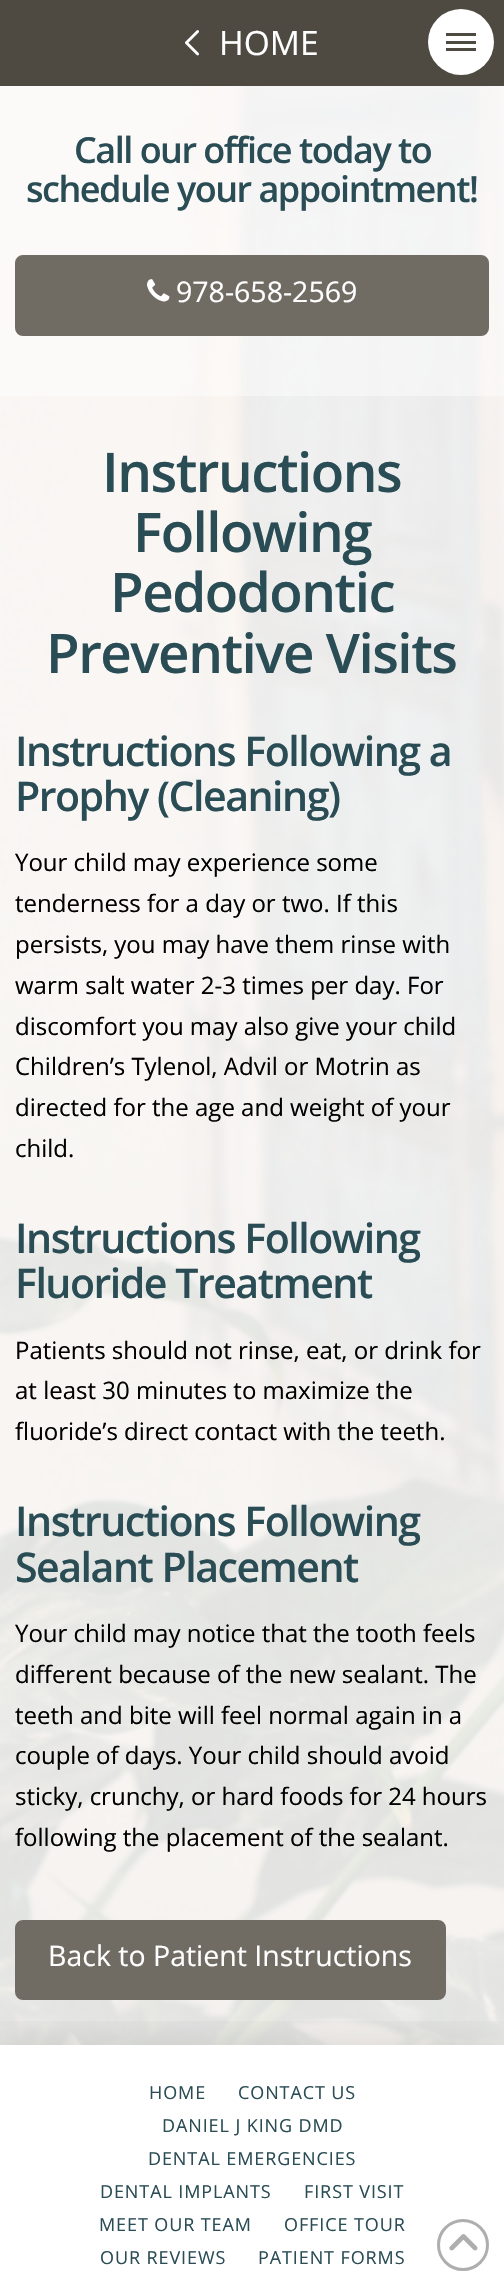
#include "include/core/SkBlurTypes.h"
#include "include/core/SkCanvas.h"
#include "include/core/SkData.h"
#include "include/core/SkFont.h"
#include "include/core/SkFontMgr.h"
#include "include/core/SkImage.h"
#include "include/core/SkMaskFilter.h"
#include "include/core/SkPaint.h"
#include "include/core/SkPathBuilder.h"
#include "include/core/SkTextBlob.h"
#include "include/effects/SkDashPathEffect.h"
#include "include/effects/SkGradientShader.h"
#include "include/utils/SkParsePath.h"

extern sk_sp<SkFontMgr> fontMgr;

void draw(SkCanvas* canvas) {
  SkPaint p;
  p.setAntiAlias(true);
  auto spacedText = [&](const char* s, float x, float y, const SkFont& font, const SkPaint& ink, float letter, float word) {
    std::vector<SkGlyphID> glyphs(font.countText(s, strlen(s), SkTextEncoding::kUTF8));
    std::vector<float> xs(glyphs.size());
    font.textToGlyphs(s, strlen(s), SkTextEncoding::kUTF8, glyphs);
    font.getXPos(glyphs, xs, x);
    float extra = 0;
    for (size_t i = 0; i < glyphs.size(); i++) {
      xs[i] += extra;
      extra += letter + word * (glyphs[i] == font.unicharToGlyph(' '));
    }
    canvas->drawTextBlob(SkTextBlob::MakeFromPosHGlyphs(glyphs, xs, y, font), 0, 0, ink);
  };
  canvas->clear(SK_ColorWHITE);
  p.setColor(SkColorSetRGB(78, 74, 66));
  canvas->drawRect(SkRect::MakeLTRB(0, 0, 504, 86), p);
  canvas->drawImageRect(SkImages::DeferredFromEncodedData(SkData::MakeFromFileName("images/1.png")), SkRect::MakeLTRB(185, 30, 199, 56), SkSamplingOptions());
  p.setColor(SK_ColorWHITE);
  canvas->drawCircle(461, 42, 33, p);
  p.setColor(SkColorSetRGB(78, 74, 66));
  canvas->drawRect(SkRect::MakeLTRB(446, 33, 476, 36), p);
  canvas->drawRect(SkRect::MakeLTRB(446, 41, 476, 44), p);
  canvas->drawRect(SkRect::MakeLTRB(446, 48, 476, 51), p);
  canvas->drawImageRect(SkImages::DeferredFromEncodedData(SkData::MakeFromFileName("images/2.png")), SkRect::MakeLTRB(0, 86, 504, 2045), SkSamplingOptions());
  p.setColor(SkColorSetARGB(204, 255, 255, 255));
  canvas->drawRect(SkRect::MakeLTRB(0, 86, 504, 396), p);
  p.setColor(SkColorSetARGB(102, 255, 255, 255));
  canvas->drawRect(SkRect::MakeLTRB(0, 86, 504, 396), p);
  p.setColor(SkColorSetRGB(112, 108, 100));
  canvas->drawRoundRect(SkRect::MakeLTRB(16, 256, 488, 335), 7, 7, p);
  p.setStyle(SkPaint::kStroke_Style);
  p.setStrokeWidth(2);
  canvas->drawRoundRect(SkRect::MakeLTRB(16, 256, 488, 335), 7, 7, p);
  canvas->drawImageRect(SkImages::DeferredFromEncodedData(SkData::MakeFromFileName("images/3.png")), SkRect::MakeLTRB(147, 279, 170, 302), SkSamplingOptions());
  p.setStyle(SkPaint::kFill_Style);
  p.setColor(SkColorSetARGB(204, 255, 255, 255));
  canvas->drawRect(SkRect::MakeLTRB(0, 396, 504, 729), p);
  canvas->drawRect(SkRect::MakeLTRB(0, 729, 504, 1890), p);
  canvas->drawRect(SkRect::MakeLTRB(0, 1890, 504, 2045), p);
  p.setColor(SkColorSetRGB(112, 108, 100));
  canvas->drawRoundRect(SkRect::MakeLTRB(16, 1921, 445, 1999), 7, 7, p);
  p.setStyle(SkPaint::kStroke_Style);
  canvas->drawRoundRect(SkRect::MakeLTRB(16, 1921, 445, 1999), 7, 7, p);
  canvas->save();
  canvas->clipRect(SkRect::MakeLTRB(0, 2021, 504, 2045));
  p.setStyle(SkPaint::kFill_Style);
  p.setColor(SkColorSetARGB(38, 0, 0, 0));
  p.setMaskFilter(SkMaskFilter::MakeBlur(kNormal_SkBlurStyle, 24));
  canvas->drawRect(SkRect::MakeLTRB(0, 2048, 504, 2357), p);
  p.setMaskFilter(nullptr);
  canvas->restore();
  p.setStyle(SkPaint::kStroke_Style);
  p.setStrokeWidth(3);
  p.setColor(SkColorSetRGB(174, 174, 174));
  canvas->drawCircle(463, 2245, 24.5f, p);
  canvas->drawImageRect(SkImages::DeferredFromEncodedData(SkData::MakeFromFileName("images/4.png")), SkRect::MakeLTRB(449, 2234, 478, 2251), SkSamplingOptions());
  SkFont font1(fontMgr->matchFamilyStyle("Open Sans", SkFontStyle::Normal()), 33.5f);
  font1.setSubpixel(true);
  p.setStyle(SkPaint::kFill_Style);
  p.setColor(SK_ColorWHITE);
  canvas->drawString("HOME", 219, 55, font1, p);
  SkFont font2(fontMgr->matchFamilyStyle("Open Sans", SkFontStyle(600, SkFontStyle::kNormal_Width, SkFontStyle::kUpright_Slant)), 36);
  font2.setSubpixel(true);
  p.setColor(SkColorSetRGB(42, 76, 85));
  spacedText("Call our office today to", 74, 163, font2, p, -1.5f, 0);
  spacedText("schedule your appointment!", 26, 202, font2, p, -1.5f, 0);
  SkFont font3(fontMgr->matchFamilyStyle("Open Sans", SkFontStyle::Normal()), 28.5f);
  font3.setSubpixel(true);
  p.setColor(SK_ColorWHITE);
  canvas->drawString("978-658-2569", 176, 302, font3, p);
  SkFont font4(fontMgr->matchFamilyStyle("Open Sans", SkFontStyle(600, SkFontStyle::kNormal_Width, SkFontStyle::kUpright_Slant)), 54.75f);
  font4.setSubpixel(true);
  p.setColor(SkColorSetRGB(42, 76, 85));
  spacedText("Instructions", 102, 492, font4, p, -1.5f, 0);
  spacedText("Following", 133, 552, font4, p, -1.5f, 0);
  spacedText("Pedodontic", 110, 612, font4, p, -1.5f, 0);
  spacedText("Preventive Visits", 46, 673, font4, p, -1.5f, 0);
  SkFont font5(fontMgr->matchFamilyStyle("Open Sans", SkFontStyle(600, SkFontStyle::kNormal_Width, SkFontStyle::kUpright_Slant)), 41.1f);
  font5.setSubpixel(true);
  spacedText("Instructions Following a", 15, 766, font5, p, -1.5f, 0);
  spacedText("Prophy (Cleaning)", 15, 811, font5, p, -1.5f, 0);
  SkFont font6(fontMgr->matchFamilyStyle("Open Sans", SkFontStyle::Normal()), 24);
  font6.setSubpixel(true);
  p.setColor(SK_ColorBLACK);
  canvas->drawString("Your child may experience some", 15, 871, font6, p);
  canvas->drawString("tenderness for a day or two. If this", 15, 912, font6, p);
  canvas->drawString("persists, you may have them rinse with", 15, 953, font6, p);
  canvas->drawString("warm salt water 2-3 times per day. For", 15, 994, font6, p);
  canvas->drawString("discomfort you may also give your child", 15, 1035, font6, p);
  canvas->drawString("Children’s Tylenol, Advil or Motrin as", 15, 1075, font6, p);
  canvas->drawString("directed for the age and weight of your", 15, 1116, font6, p);
  canvas->drawString("child.", 15, 1157, font6, p);
  p.setColor(SkColorSetRGB(42, 76, 85));
  spacedText("Instructions Following", 15, 1253, font5, p, -1.5f, 0);
  spacedText("Fluoride Treatment", 15, 1298, font5, p, -1.5f, 0);
  p.setColor(SK_ColorBLACK);
  canvas->drawString("Patients should not rinse, eat, or drink for", 15, 1359, font6, p);
  canvas->drawString("at least 30 minutes to maximize the", 15, 1399, font6, p);
  canvas->drawString("fluoride’s direct contact with the teeth.", 15, 1440, font6, p);
  p.setColor(SkColorSetRGB(42, 76, 85));
  spacedText("Instructions Following", 15, 1536, font5, p, -1.5f, 0);
  spacedText("Sealant Placement", 15, 1582, font5, p, -1.5f, 0);
  p.setColor(SK_ColorBLACK);
  canvas->drawString("Your child may notice that the tooth feels", 15, 1642, font6, p);
  canvas->drawString("different because of the new sealant. The", 15, 1683, font6, p);
  canvas->drawString("teeth and bite will feel normal again in a", 15, 1724, font6, p);
  canvas->drawString("couple of days. Your child should avoid", 15, 1764, font6, p);
  canvas->drawString("sticky, crunchy, or hard foods for 24 hours", 15, 1805, font6, p);
  canvas->drawString("following the placement of the sealant.", 15, 1846, font6, p);
  p.setColor(SK_ColorWHITE);
  canvas->drawString("Back to Patient Instructions", 48, 1966, font3, p);
  SkFont font7(fontMgr->matchFamilyStyle("Open Sans", SkFontStyle::Normal()), 18);
  font7.setSubpixel(true);
  p.setColor(SkColorSetRGB(42, 76, 85));
  spacedText("HOME", 149, 2099, font7, p, 0.9f, 0);
  spacedText("CONTACT US", 238, 2099, font7, p, 0.9f, 0);
  spacedText("DANIEL J KING DMD", 162, 2132, font7, p, 0.9f, 0);
  spacedText("DENTAL EMERGENCIES", 148, 2165, font7, p, 0.9f, 0);
  spacedText("DENTAL IMPLANTS", 100, 2198, font7, p, 0.9f, 0);
  spacedText("FIRST VISIT", 304, 2198, font7, p, 0.9f, 0);
  spacedText("MEET OUR TEAM", 99, 2231, font7, p, 0.9f, 0);
  spacedText("OFFICE TOUR", 284, 2231, font7, p, 0.9f, 0);
  spacedText("OUR REVIEWS", 100, 2264, font7, p, 0.9f, 0);
  spacedText("PATIENT FORMS", 258, 2264, font7, p, 0.9f, 0);
}
